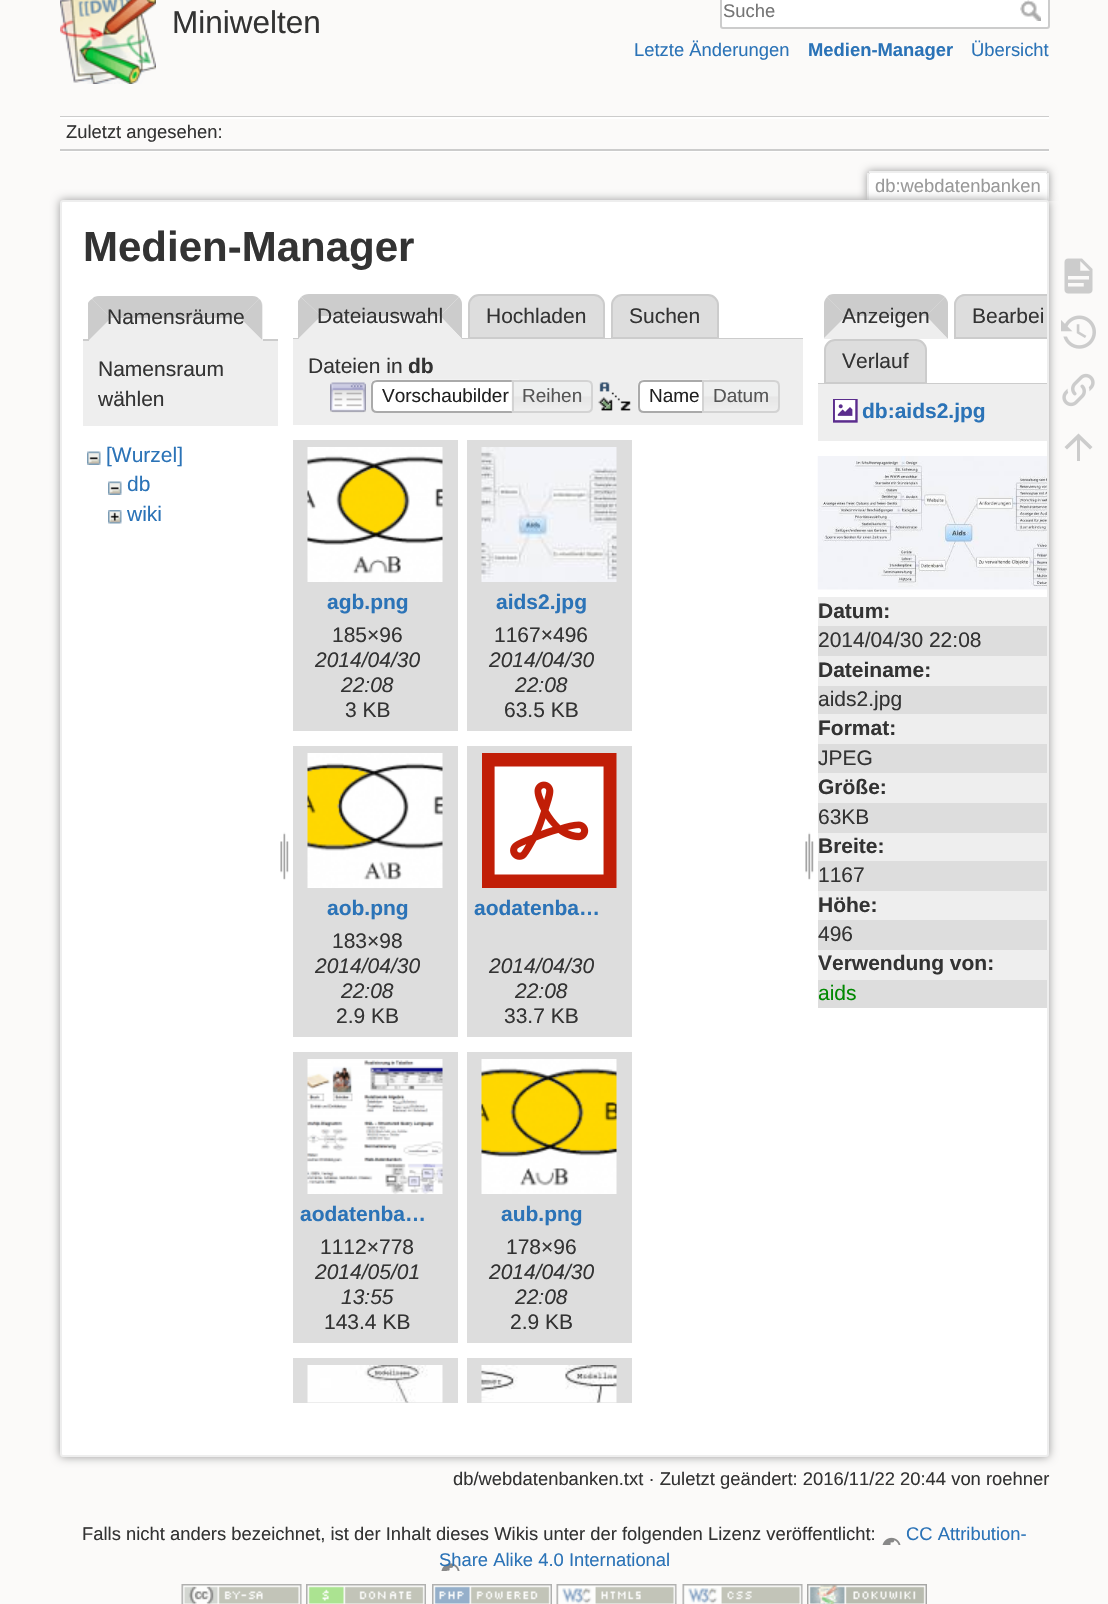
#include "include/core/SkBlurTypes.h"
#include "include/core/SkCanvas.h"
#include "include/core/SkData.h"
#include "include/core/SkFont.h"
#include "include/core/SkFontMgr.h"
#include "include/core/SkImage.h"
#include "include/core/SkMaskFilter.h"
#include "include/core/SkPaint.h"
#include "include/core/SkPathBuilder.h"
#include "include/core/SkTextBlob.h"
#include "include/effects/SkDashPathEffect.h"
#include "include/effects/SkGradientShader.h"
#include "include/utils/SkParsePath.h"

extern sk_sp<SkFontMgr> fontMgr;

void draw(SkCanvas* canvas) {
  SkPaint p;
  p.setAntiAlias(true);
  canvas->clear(SkColorSetRGB(251, 250, 249));
  canvas->drawImageRect(SkImages::DeferredFromEncodedData(SkData::MakeFromFileName("images/1.png")), SkRect::MakeLTRB(60, 0, 156, 84), SkSamplingOptions());
  p.setColor(SK_ColorWHITE);
  canvas->drawRoundRect(SkRect::MakeLTRB(721, -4, 1049, 28), 2, 2, p);
  p.setStyle(SkPaint::kStroke_Style);
  p.setStrokeWidth(2);
  p.setColor(SkColorSetRGB(204, 204, 204));
  canvas->drawRoundRect(SkRect::MakeLTRB(721, -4, 1049, 28), 2, 2, p);
  canvas->drawImageRect(SkImages::DeferredFromEncodedData(SkData::MakeFromFileName("images/2.png")), SkRect::MakeLTRB(1020, 0, 1041, 21), SkSamplingOptions());
  p.setStyle(SkPaint::kFill_Style);
  canvas->drawRect(SkRect::MakeLTRB(60, 116, 1049, 117), p);
  p.setColor(SK_ColorWHITE);
  canvas->drawRect(SkRect::MakeLTRB(60, 151, 1049, 152), p);
  canvas->drawRect(SkRect::MakeLTRB(60, 117, 1049, 119), p);
  p.setColor(SkColorSetRGB(204, 204, 204));
  canvas->drawRect(SkRect::MakeLTRB(60, 149, 1049, 151), p);
  canvas->save();
  canvas->clipRect(SkRect::MakeLTRB(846, 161, 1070, 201));
  p.setColor(SkColorSetRGB(153, 153, 153));
  p.setMaskFilter(SkMaskFilter::MakeBlur(kNormal_SkBlurStyle, 4.5f));
  canvas->drawRoundRect(SkRect::MakeLTRB(867, 171, 1049, 201), 3, 3, p);
  p.setMaskFilter(nullptr);
  canvas->restore();
  p.setColor(SK_ColorWHITE);
  canvas->drawPath(SkPathBuilder().moveTo(870.5f, 173).lineTo(1045.5f, 173).cubicTo(1046.5f, 173, 1047, 173.5f, 1047, 174.5f).lineTo(1047, 201).lineTo(869, 201).lineTo(869, 174.5f).cubicTo(869, 173.5f, 869.5f, 173, 870.5f, 173).close().detach(), p);
  p.setColor(SkColorSetRGB(238, 238, 238));
  canvas->drawRect(SkRect::MakeLTRB(869, 171, 1047, 173), p);
  canvas->drawRect(SkRect::MakeLTRB(1047, 173, 1049, 201), p);
  canvas->drawRect(SkRect::MakeLTRB(867, 173, 869, 201), p);
  p.setColor(SkColorSetRGB(153, 153, 153));
  p.setMaskFilter(SkMaskFilter::MakeBlur(kNormal_SkBlurStyle, 5));
  canvas->drawRoundRect(SkRect::MakeLTRB(60, 200, 1049, 1457), 3, 3, p);
  p.setMaskFilter(nullptr);
  p.setColor(SK_ColorWHITE);
  canvas->drawRoundRect(SkRect::MakeLTRB(61, 201, 1048, 1456), 2, 2, p);
  p.setStyle(SkPaint::kStroke_Style);
  p.setColor(SkColorSetRGB(238, 238, 238));
  canvas->drawRoundRect(SkRect::MakeLTRB(61, 201, 1048, 1456), 2, 2, p);
  p.setStyle(SkPaint::kFill_Style);
  p.setColor(SkColorSetRGB(204, 204, 204));
  canvas->drawRect(SkRect::MakeLTRB(83, 339, 278, 341), p);
  p.setColor(SkColorSetRGB(238, 238, 238));
  canvas->drawPath(SkPathBuilder().moveTo(100, 296).lineTo(252, 296).cubicTo(258, 296, 263, 301, 263, 307).lineTo(263, 341).lineTo(89, 341).lineTo(89, 307).cubicTo(89, 301, 94, 296, 100, 296).close().detach(), p);
  p.setColor(SkColorSetRGB(204, 204, 204));
  canvas->drawPath(SkPathBuilder().moveTo(99, 296).cubicTo(96, 296, 93, 297, 92, 299).lineTo(111, 318).lineTo(240, 318).lineTo(259, 299).cubicTo(258, 297, 255, 296, 252, 296).close().detach(), p);
  canvas->drawPath(SkPathBuilder().moveTo(262, 340).lineTo(262, 306).cubicTo(262, 303, 261, 300, 259, 299).lineTo(240, 318).close().detach(), p);
  p.setColor(SkColorSetRGB(238, 238, 238));
  canvas->drawPath(SkPathBuilder().moveTo(262, 340).lineTo(240, 318).lineTo(111, 318).lineTo(89, 340).close().detach(), p);
  p.setColor(SkColorSetRGB(204, 204, 204));
  canvas->drawPath(SkPathBuilder().moveTo(88, 303).cubicTo(89, 301, 90, 300, 92, 299).lineTo(111, 318).lineTo(89, 340).lineTo(88, 340).close().detach(), p);
  p.setColor(SkColorSetRGB(238, 238, 238));
  canvas->drawRect(SkRect::MakeLTRB(83, 341, 278, 426), p);
  canvas->drawImageRect(SkImages::DeferredFromEncodedData(SkData::MakeFromFileName("images/3.png")), SkRect::MakeLTRB(87, 451, 101, 465), SkSamplingOptions());
  canvas->drawImageRect(SkImages::DeferredFromEncodedData(SkData::MakeFromFileName("images/3.png")), SkRect::MakeLTRB(108, 481, 122, 495), SkSamplingOptions());
  canvas->drawImageRect(SkImages::DeferredFromEncodedData(SkData::MakeFromFileName("images/4.png")), SkRect::MakeLTRB(108, 510, 122, 524), SkSamplingOptions());
  canvas->drawImageRect(SkImages::DeferredFromEncodedData(SkData::MakeFromFileName("images/5.png")), SkRect::MakeLTRB(280, 832, 289, 880), SkSamplingOptions());
  p.setColor(SkColorSetRGB(204, 204, 204));
  canvas->drawPath(SkPathBuilder().moveTo(309, 294).lineTo(452, 294).cubicTo(454, 294, 457, 295, 459, 297).lineTo(440, 316).lineTo(321, 316).lineTo(301, 297).cubicTo(303, 295, 306, 294, 309, 294).close().detach(), p);
  p.setColor(SkColorSetRGB(221, 221, 221));
  canvas->drawPath(SkPathBuilder().moveTo(479, 295).lineTo(594, 295).cubicTo(599.5f, 295, 604, 299.5f, 604, 305).lineTo(604, 338).lineTo(469, 338).lineTo(469, 305).cubicTo(469, 299.5f, 473.5f, 295, 479, 295).close().detach(), p);
  p.setStyle(SkPaint::kStroke_Style);
  p.setColor(SkColorSetRGB(204, 204, 204));
  canvas->drawPath(SkPathBuilder().moveTo(479, 295).lineTo(594, 295).cubicTo(599.5f, 295, 604, 299.5f, 604, 305).lineTo(604, 338).lineTo(469, 338).lineTo(469, 305).cubicTo(469, 299.5f, 473.5f, 295, 479, 295).close().detach(), p);
  p.setStyle(SkPaint::kFill_Style);
  p.setColor(SkColorSetRGB(221, 221, 221));
  canvas->drawPath(SkPathBuilder().moveTo(622, 295).lineTo(708, 295).cubicTo(713.5f, 295, 718, 299.5f, 718, 305).lineTo(718, 338).lineTo(612, 338).lineTo(612, 305).cubicTo(612, 299.5f, 616.5f, 295, 622, 295).close().detach(), p);
  p.setStyle(SkPaint::kStroke_Style);
  p.setColor(SkColorSetRGB(204, 204, 204));
  canvas->drawPath(SkPathBuilder().moveTo(622, 295).lineTo(708, 295).cubicTo(713.5f, 295, 718, 299.5f, 718, 305).lineTo(718, 338).lineTo(612, 338).lineTo(612, 305).cubicTo(612, 299.5f, 616.5f, 295, 622, 295).close().detach(), p);
  p.setStyle(SkPaint::kFill_Style);
  canvas->drawRect(SkRect::MakeLTRB(293, 338, 803, 339), p);
  canvas->drawPath(SkPathBuilder().moveTo(459, 297).lineTo(440, 316).lineTo(462, 339).lineTo(462, 304).cubicTo(462, 302, 461, 299, 459, 297).close().detach(), p);
  p.setColor(SkColorSetRGB(238, 238, 238));
  canvas->drawPath(SkPathBuilder().moveTo(462, 339).lineTo(440, 316).lineTo(321, 316).lineTo(298, 339).close().detach(), p);
  p.setColor(SkColorSetRGB(204, 204, 204));
  canvas->drawPath(SkPathBuilder().moveTo(298, 339).lineTo(321, 316).lineTo(301, 297).lineTo(298, 301).close().detach(), p);
  p.setColor(SkColorSetRGB(238, 238, 238));
  canvas->drawRect(SkRect::MakeLTRB(293, 339, 803, 425), p);
  canvas->drawImageRect(SkImages::DeferredFromEncodedData(SkData::MakeFromFileName("images/6.png")), SkRect::MakeLTRB(330, 382, 366, 413), SkSamplingOptions());
  p.setColor(SK_ColorWHITE);
  canvas->drawPath(SkPathBuilder().moveTo(377, 380).lineTo(519, 380).lineTo(519, 413).lineTo(377, 413).cubicTo(373.5f, 413, 371, 410.5f, 371, 407).lineTo(371, 386).cubicTo(371, 382.5f, 373.5f, 380, 377, 380).close().detach(), p);
  canvas->drawImageRect(SkImages::DeferredFromEncodedData(SkData::MakeFromFileName("images/7.png")), SkRect::MakeLTRB(370, 379, 519, 410), SkSamplingOptions());
  p.setStyle(SkPaint::kStroke_Style);
  p.setColor(SkColorSetRGB(170, 170, 170));
  canvas->drawPath(SkPathBuilder().moveTo(377, 381).lineTo(518, 381).lineTo(518, 412).lineTo(377, 412).cubicTo(374, 412, 372, 410, 372, 407).lineTo(372, 386).cubicTo(372, 383, 374, 381, 377, 381).close().detach(), p);
  canvas->drawImageRect(SkImages::DeferredFromEncodedData(SkData::MakeFromFileName("images/8.png")), SkRect::MakeLTRB(511, 380, 592, 413), SkSamplingOptions());
  p.setColor(SkColorSetRGB(211, 211, 211));
  canvas->drawPath(SkPathBuilder().moveTo(513, 381).lineTo(587, 381).cubicTo(590, 381, 592, 383, 592, 386).lineTo(592, 407).cubicTo(592, 410, 590, 412, 587, 412).lineTo(513, 412).close().detach(), p);
  canvas->drawImageRect(SkImages::DeferredFromEncodedData(SkData::MakeFromFileName("images/9.png")), SkRect::MakeLTRB(598, 382, 631, 411), SkSamplingOptions());
  p.setStyle(SkPaint::kFill_Style);
  p.setColor(SK_ColorWHITE);
  canvas->drawPath(SkPathBuilder().moveTo(644, 380).lineTo(710, 380).lineTo(710, 413).lineTo(644, 413).cubicTo(640.5f, 413, 638, 410.5f, 638, 407).lineTo(638, 386).cubicTo(638, 382.5f, 640.5f, 380, 644, 380).close().detach(), p);
  canvas->drawImageRect(SkImages::DeferredFromEncodedData(SkData::MakeFromFileName("images/10.png")), SkRect::MakeLTRB(637, 379, 709, 410), SkSamplingOptions());
  p.setStyle(SkPaint::kStroke_Style);
  p.setColor(SkColorSetRGB(170, 170, 170));
  canvas->drawPath(SkPathBuilder().moveTo(644, 381).lineTo(709, 381).lineTo(709, 412).lineTo(644, 412).cubicTo(641, 412, 639, 410, 639, 407).lineTo(639, 386).cubicTo(639, 383, 641, 381, 644, 381).close().detach(), p);
  canvas->drawImageRect(SkImages::DeferredFromEncodedData(SkData::MakeFromFileName("images/11.png")), SkRect::MakeLTRB(704, 380, 780, 412), SkSamplingOptions());
  p.setColor(SkColorSetRGB(211, 211, 211));
  canvas->drawPath(SkPathBuilder().moveTo(703, 381).lineTo(774, 381).cubicTo(777, 381, 779, 383, 779, 386).lineTo(779, 407).cubicTo(779, 410, 777, 412, 774, 412).lineTo(703, 412).close().detach(), p);
  p.setStyle(SkPaint::kFill_Style);
  p.setColor(SkColorSetRGB(221, 221, 221));
  canvas->drawRect(SkRect::MakeLTRB(293, 440, 458, 731), p);
  canvas->drawImageRect(SkImages::DeferredFromEncodedData(SkData::MakeFromFileName("images/12.png")), SkRect::MakeLTRB(307, 447, 443, 582), SkSamplingOptions());
  canvas->drawRect(SkRect::MakeLTRB(467, 440, 632, 731), p);
  canvas->drawImageRect(SkImages::DeferredFromEncodedData(SkData::MakeFromFileName("images/13.png")), SkRect::MakeLTRB(481, 447, 617, 582), SkSamplingOptions());
  canvas->drawRect(SkRect::MakeLTRB(293, 746, 458, 1037), p);
  canvas->drawImageRect(SkImages::DeferredFromEncodedData(SkData::MakeFromFileName("images/14.png")), SkRect::MakeLTRB(307, 753, 443, 888), SkSamplingOptions());
  canvas->drawRect(SkRect::MakeLTRB(467, 746, 632, 1037), p);
  canvas->drawImageRect(SkImages::DeferredFromEncodedData(SkData::MakeFromFileName("images/15.png")), SkRect::MakeLTRB(482, 753, 617, 888), SkSamplingOptions());
  canvas->drawRect(SkRect::MakeLTRB(293, 1052, 458, 1343), p);
  canvas->drawImageRect(SkImages::DeferredFromEncodedData(SkData::MakeFromFileName("images/16.png")), SkRect::MakeLTRB(307, 1059, 443, 1194), SkSamplingOptions());
  canvas->drawRect(SkRect::MakeLTRB(467, 1052, 632, 1343), p);
  canvas->drawImageRect(SkImages::DeferredFromEncodedData(SkData::MakeFromFileName("images/17.png")), SkRect::MakeLTRB(481, 1059, 617, 1194), SkSamplingOptions());
  canvas->drawRect(SkRect::MakeLTRB(293, 1358, 458, 1403), p);
  canvas->drawImageRect(SkImages::DeferredFromEncodedData(SkData::MakeFromFileName("images/18.png")), SkRect::MakeLTRB(307, 1365, 443, 1403), SkSamplingOptions());
  canvas->drawRect(SkRect::MakeLTRB(467, 1358, 632, 1403), p);
  canvas->drawImageRect(SkImages::DeferredFromEncodedData(SkData::MakeFromFileName("images/19.png")), SkRect::MakeLTRB(481, 1365, 617, 1403), SkSamplingOptions());
  canvas->drawImageRect(SkImages::DeferredFromEncodedData(SkData::MakeFromFileName("images/20.png")), SkRect::MakeLTRB(805, 832, 814, 880), SkSamplingOptions());
  p.setColor(SkColorSetRGB(238, 238, 238));
  canvas->drawPath(SkPathBuilder().moveTo(835, 294).lineTo(937, 294).cubicTo(943, 294, 948, 299, 948, 305).lineTo(948, 339).lineTo(824, 339).lineTo(824, 305).cubicTo(824, 299, 829, 294, 835, 294).close().detach(), p);
  p.setColor(SkColorSetRGB(204, 204, 204));
  canvas->drawPath(SkPathBuilder().moveTo(834, 294).lineTo(938, 294).cubicTo(940, 294, 943, 295, 945, 297).lineTo(926, 316).lineTo(846, 316).lineTo(827, 297).cubicTo(828, 295, 831, 294, 834, 294).close().detach(), p);
  canvas->drawPath(SkPathBuilder().moveTo(945, 297).lineTo(926, 316).lineTo(948, 339).lineTo(948, 304).cubicTo(948, 302, 947, 299, 945, 297).close().detach(), p);
  p.setColor(SkColorSetRGB(238, 238, 238));
  canvas->drawPath(SkPathBuilder().moveTo(948, 339).lineTo(824, 339).lineTo(846, 316).lineTo(926, 316).close().detach(), p);
  p.setColor(SkColorSetRGB(204, 204, 204));
  canvas->drawPath(SkPathBuilder().moveTo(827, 297).cubicTo(825, 299, 824, 302, 824, 304).lineTo(824, 338).lineTo(846, 316).close().detach(), p);
  p.setColor(SkColorSetRGB(221, 221, 221));
  canvas->drawPath(SkPathBuilder().moveTo(965, 294).lineTo(1047, 294).lineTo(1047, 339).lineTo(954, 339).lineTo(954, 305).cubicTo(954, 299, 959, 294, 965, 294).close().detach(), p);
  p.setColor(SkColorSetRGB(204, 204, 204));
  canvas->drawPath(SkPathBuilder().moveTo(965, 294).cubicTo(959, 294, 954, 299, 954, 305).lineTo(954, 339).lineTo(1047, 339).lineTo(1047, 337).lineTo(956, 337).lineTo(956, 305).cubicTo(956, 300, 960, 296, 965, 296).lineTo(1047, 296).lineTo(1047, 294).close().detach(), p);
  p.setColor(SkColorSetRGB(221, 221, 221));
  canvas->drawPath(SkPathBuilder().moveTo(835, 340).lineTo(916, 340).cubicTo(921.5f, 340, 926, 344.5f, 926, 350).lineTo(926, 383).lineTo(825, 383).lineTo(825, 350).cubicTo(825, 344.5f, 829.5f, 340, 835, 340).close().detach(), p);
  p.setStyle(SkPaint::kStroke_Style);
  p.setColor(SkColorSetRGB(204, 204, 204));
  canvas->drawPath(SkPathBuilder().moveTo(835, 340).lineTo(916, 340).cubicTo(921.5f, 340, 926, 344.5f, 926, 350).lineTo(926, 383).lineTo(825, 383).lineTo(825, 350).cubicTo(825, 344.5f, 829.5f, 340, 835, 340).close().detach(), p);
  p.setStyle(SkPaint::kFill_Style);
  canvas->drawRect(SkRect::MakeLTRB(818, 383, 1047, 384), p);
  p.setColor(SkColorSetRGB(238, 238, 238));
  canvas->drawRect(SkRect::MakeLTRB(818, 384, 1047, 441), p);
  canvas->drawImageRect(SkImages::DeferredFromEncodedData(SkData::MakeFromFileName("images/21.png")), SkRect::MakeLTRB(833, 399, 858, 423), SkSamplingOptions());
  canvas->drawImageRect(SkImages::DeferredFromEncodedData(SkData::MakeFromFileName("images/22.png")), SkRect::MakeLTRB(817, 456, 1047, 590), SkSamplingOptions());
  canvas->drawRect(SkRect::MakeLTRB(818, 597, 1047, 626), p);
  p.setColor(SkColorSetRGB(221, 221, 221));
  canvas->drawRect(SkRect::MakeLTRB(818, 626, 1047, 656), p);
  p.setColor(SkColorSetRGB(238, 238, 238));
  canvas->drawRect(SkRect::MakeLTRB(818, 656, 1047, 686), p);
  p.setColor(SkColorSetRGB(221, 221, 221));
  canvas->drawRect(SkRect::MakeLTRB(818, 686, 1047, 714), p);
  p.setColor(SkColorSetRGB(238, 238, 238));
  canvas->drawRect(SkRect::MakeLTRB(818, 714, 1047, 744), p);
  p.setColor(SkColorSetRGB(221, 221, 221));
  canvas->drawRect(SkRect::MakeLTRB(818, 744, 1047, 773), p);
  p.setColor(SkColorSetRGB(238, 238, 238));
  canvas->drawRect(SkRect::MakeLTRB(818, 773, 1047, 803), p);
  p.setColor(SkColorSetRGB(221, 221, 221));
  canvas->drawRect(SkRect::MakeLTRB(818, 803, 1047, 833), p);
  p.setColor(SkColorSetRGB(238, 238, 238));
  canvas->drawRect(SkRect::MakeLTRB(818, 833, 1047, 861), p);
  p.setColor(SkColorSetRGB(221, 221, 221));
  canvas->drawRect(SkRect::MakeLTRB(818, 861, 1047, 891), p);
  p.setColor(SkColorSetRGB(238, 238, 238));
  canvas->drawRect(SkRect::MakeLTRB(818, 891, 1047, 920), p);
  p.setColor(SkColorSetRGB(221, 221, 221));
  canvas->drawRect(SkRect::MakeLTRB(818, 920, 1047, 950), p);
  p.setColor(SkColorSetRGB(238, 238, 238));
  canvas->drawRect(SkRect::MakeLTRB(818, 950, 1047, 980), p);
  p.setColor(SkColorSetRGB(221, 221, 221));
  canvas->drawRect(SkRect::MakeLTRB(818, 980, 1047, 1008), p);
  canvas->drawImageRect(SkImages::DeferredFromEncodedData(SkData::MakeFromFileName("images/23.png")), SkRect::MakeLTRB(1064, 258, 1093, 294), SkSamplingOptions());
  canvas->drawImageRect(SkImages::DeferredFromEncodedData(SkData::MakeFromFileName("images/24.png")), SkRect::MakeLTRB(1061, 315, 1096, 349), SkSamplingOptions());
  canvas->drawImageRect(SkImages::DeferredFromEncodedData(SkData::MakeFromFileName("images/25.png")), SkRect::MakeLTRB(1062, 373, 1095, 407), SkSamplingOptions());
  p.setColor(SkColorSetRGB(204, 204, 204));
  canvas->drawPath(SkPathBuilder().moveTo(1080, 461).lineTo(1077, 461).lineTo(1077, 440).lineTo(1067, 449.5f).lineTo(1064.5f, 447).lineTo(1078.5f, 433.5f).lineTo(1092.5f, 447).lineTo(1090, 449.5f).lineTo(1080, 440).close().detach(), p);
  canvas->drawImageRect(SkImages::DeferredFromEncodedData(SkData::MakeFromFileName("images/27.png")), SkRect::MakeLTRB(181, 1584, 302, 1604), SkSamplingOptions());
  canvas->drawImageRect(SkImages::DeferredFromEncodedData(SkData::MakeFromFileName("images/28.png")), SkRect::MakeLTRB(306, 1584, 426, 1604), SkSamplingOptions());
  canvas->drawImageRect(SkImages::DeferredFromEncodedData(SkData::MakeFromFileName("images/29.png")), SkRect::MakeLTRB(432, 1584, 552, 1604), SkSamplingOptions());
  canvas->drawImageRect(SkImages::DeferredFromEncodedData(SkData::MakeFromFileName("images/30.png")), SkRect::MakeLTRB(556, 1584, 677, 1604), SkSamplingOptions());
  canvas->drawImageRect(SkImages::DeferredFromEncodedData(SkData::MakeFromFileName("images/31.png")), SkRect::MakeLTRB(682, 1584, 803, 1604), SkSamplingOptions());
  canvas->drawImageRect(SkImages::DeferredFromEncodedData(SkData::MakeFromFileName("images/32.png")), SkRect::MakeLTRB(807, 1584, 927, 1604), SkSamplingOptions());
  SkFont font1(fontMgr->matchFamilyStyle("Liberation Sans", SkFontStyle::Normal()), 31.5f);
  font1.setSubpixel(true);
  p.setColor(SkColorSetRGB(51, 51, 51));
  canvas->drawString("Miniwelten", 172, 33, font1, p);
  SkFont font2(fontMgr->matchFamilyStyle("Liberation Sans", SkFontStyle::Normal()), 18.4f);
  font2.setSubpixel(true);
  p.setColor(SkColorSetRGB(117, 117, 117));
  canvas->drawString("Suche", 723, 17, font2, p);
  p.setColor(SkColorSetRGB(43, 115, 183));
  canvas->drawString("Letzte Änderungen", 634, 56, font2, p);
  SkFont font3(fontMgr->matchFamilyStyle("Liberation Sans", SkFontStyle::Bold()), 18.4f);
  font3.setSubpixel(true);
  canvas->drawString("Medien-Manager", 808, 56, font3, p);
  canvas->drawString("Übersicht", 971, 56, font2, p);
  p.setColor(SkColorSetRGB(51, 51, 51));
  canvas->drawString("Zuletzt angesehen:", 66, 138, font2, p);
  p.setColor(SkColorSetRGB(153, 153, 153));
  canvas->drawString("db:webdatenbanken", 875, 192, font2, p);
  SkFont font4(fontMgr->matchFamilyStyle("Liberation Sans", SkFontStyle::Bold()), 42);
  font4.setSubpixel(true);
  p.setColor(SkColorSetRGB(51, 51, 51));
  canvas->drawString("Medien-Manager", 83, 261, font4, p);
  SkFont font5(fontMgr->matchFamilyStyle("Liberation Sans", SkFontStyle::Normal()), 21);
  font5.setSubpixel(true);
  canvas->drawString("Namensräume", 107, 324, font5, p);
  canvas->drawString("Namensraum", 98, 376, font5, p);
  canvas->drawString("wählen", 98, 406, font5, p);
  p.setColor(SkColorSetRGB(43, 115, 183));
  canvas->drawString("[Wurzel]", 106, 462, font5, p);
  canvas->drawString("db", 127, 491, font5, p);
  canvas->drawString("wiki", 127, 521, font5, p);
  p.setColor(SkColorSetRGB(51, 51, 51));
  canvas->drawString("Dateiauswahl", 317, 323, font5, p);
  canvas->drawString("Hochladen", 486, 323, font5, p);
  canvas->drawString("Suchen", 629, 323, font5, p);
  canvas->drawString("Dateien in", 308, 373, font5, p);
  SkFont font6(fontMgr->matchFamilyStyle("Liberation Sans", SkFontStyle::Bold()), 21);
  font6.setSubpixel(true);
  canvas->drawString("db", 408, 373, font6, p);
  SkFont font7(fontMgr->matchFamilyStyle("Liberation Sans", SkFontStyle::Normal()), 19);
  font7.setSubpixel(true);
  p.setColor(SkColorSetRGB(33, 33, 33));
  canvas->drawString("Vorschaubilder", 382, 402, font7, p);
  p.setColor(SkColorSetRGB(85, 85, 85));
  canvas->drawString("Reihen", 522, 402, font7, p);
  p.setColor(SkColorSetRGB(33, 33, 33));
  canvas->drawString("Name", 649, 402, font7, p);
  p.setColor(SkColorSetRGB(85, 85, 85));
  canvas->drawString("Datum", 713, 402, font7, p);
  p.setColor(SkColorSetRGB(43, 115, 183));
  canvas->drawString("agb.png", 327, 609, font6, p);
  p.setColor(SkColorSetRGB(51, 51, 51));
  canvas->drawString("185×96", 332, 642, font5, p);
  SkFont font8(fontMgr->matchFamilyStyle("Liberation Sans", SkFontStyle::Italic()), 21);
  font8.setSubpixel(true);
  canvas->drawString("2014/04/30", 315, 667, font8, p);
  canvas->drawString("22:08", 341, 692, font8, p);
  canvas->drawString("3 KB", 345, 717, font5, p);
  p.setColor(SkColorSetRGB(43, 115, 183));
  canvas->drawString("aids2.jpg", 496, 609, font6, p);
  p.setColor(SkColorSetRGB(51, 51, 51));
  canvas->drawString("1167×496", 494, 642, font5, p);
  canvas->drawString("2014/04/30", 489, 667, font8, p);
  canvas->drawString("22:08", 515, 692, font8, p);
  canvas->drawString("63.5 KB", 504, 717, font5, p);
  p.setColor(SkColorSetRGB(43, 115, 183));
  canvas->drawString("aob.png", 327, 915, font6, p);
  p.setColor(SkColorSetRGB(51, 51, 51));
  canvas->drawString("183×98", 332, 948, font5, p);
  canvas->drawString("2014/04/30", 315, 973, font8, p);
  canvas->drawString("22:08", 341, 998, font8, p);
  canvas->drawString("2.9 KB", 336, 1023, font5, p);
  p.setColor(SkColorSetRGB(43, 115, 183));
  canvas->drawString("aodatenba…", 474, 915, font6, p);
  p.setColor(SkColorSetRGB(51, 51, 51));
  canvas->drawString("2014/04/30", 489, 973, font8, p);
  canvas->drawString("22:08", 515, 998, font8, p);
  canvas->drawString("33.7 KB", 504, 1023, font5, p);
  p.setColor(SkColorSetRGB(43, 115, 183));
  canvas->drawString("aodatenba…", 300, 1221, font6, p);
  p.setColor(SkColorSetRGB(51, 51, 51));
  canvas->drawString("1112×778", 320, 1254, font5, p);
  canvas->drawString("2014/05/01", 315, 1279, font8, p);
  canvas->drawString("13:55", 341, 1304, font8, p);
  canvas->drawString("143.4 KB", 324, 1329, font5, p);
  p.setColor(SkColorSetRGB(43, 115, 183));
  canvas->drawString("aub.png", 501, 1221, font6, p);
  p.setColor(SkColorSetRGB(51, 51, 51));
  canvas->drawString("178×96", 506, 1254, font5, p);
  canvas->drawString("2014/04/30", 489, 1279, font8, p);
  canvas->drawString("22:08", 515, 1304, font8, p);
  canvas->drawString("2.9 KB", 510, 1329, font5, p);
  canvas->drawString("Anzeigen", 842, 323, font5, p);
  canvas->drawString("Bearbei", 972, 323, font5, p);
  canvas->drawString("Verlauf", 842, 368, font5, p);
  p.setColor(SkColorSetRGB(43, 115, 183));
  canvas->drawString("db:aids2.jpg", 862, 418, font6, p);
  p.setColor(SkColorSetRGB(51, 51, 51));
  canvas->drawString("Datum:", 818, 618, font6, p);
  canvas->drawString("2014/04/30 22:08", 818, 647, font5, p);
  canvas->drawString("Dateiname:", 818, 677, font6, p);
  canvas->drawString("aids2.jpg", 818, 706, font5, p);
  canvas->drawString("Format:", 818, 735, font6, p);
  canvas->drawString("JPEG", 818, 765, font5, p);
  canvas->drawString("Größe:", 818, 794, font6, p);
  canvas->drawString("63KB", 818, 824, font5, p);
  canvas->drawString("Breite:", 818, 853, font6, p);
  canvas->drawString("1167", 818, 882, font5, p);
  canvas->drawString("Höhe:", 818, 912, font6, p);
  canvas->drawString("496", 818, 941, font5, p);
  canvas->drawString("Verwendung von:", 818, 970, font6, p);
  p.setColor(SkColorSetRGB(0, 136, 0));
  canvas->drawString("aids", 818, 1000, font5, p);
  p.setColor(SkColorSetRGB(51, 51, 51));
  canvas->drawString("db/webdatenbanken.txt · Zuletzt geändert: 2016/11/22 20:44 von roehner", 453, 1485, font2, p);
  canvas->drawString("Falls nicht anders bezeichnet, ist der Inhalt dieses Wikis unter der folgenden Lizenz veröffentlicht:", 82, 1540, font2, p);
  p.setColor(SkColorSetRGB(43, 115, 183));
  canvas->drawString("CC Attribution-", 906, 1540, font2, p);
  canvas->drawImageRect(SkImages::DeferredFromEncodedData(SkData::MakeFromFileName("images/26.png")), SkRect::MakeLTRB(441, 1537, 901, 1571), SkSamplingOptions());
  canvas->drawString("Share Alike 4.0 International", 439, 1566, font2, p);
}
